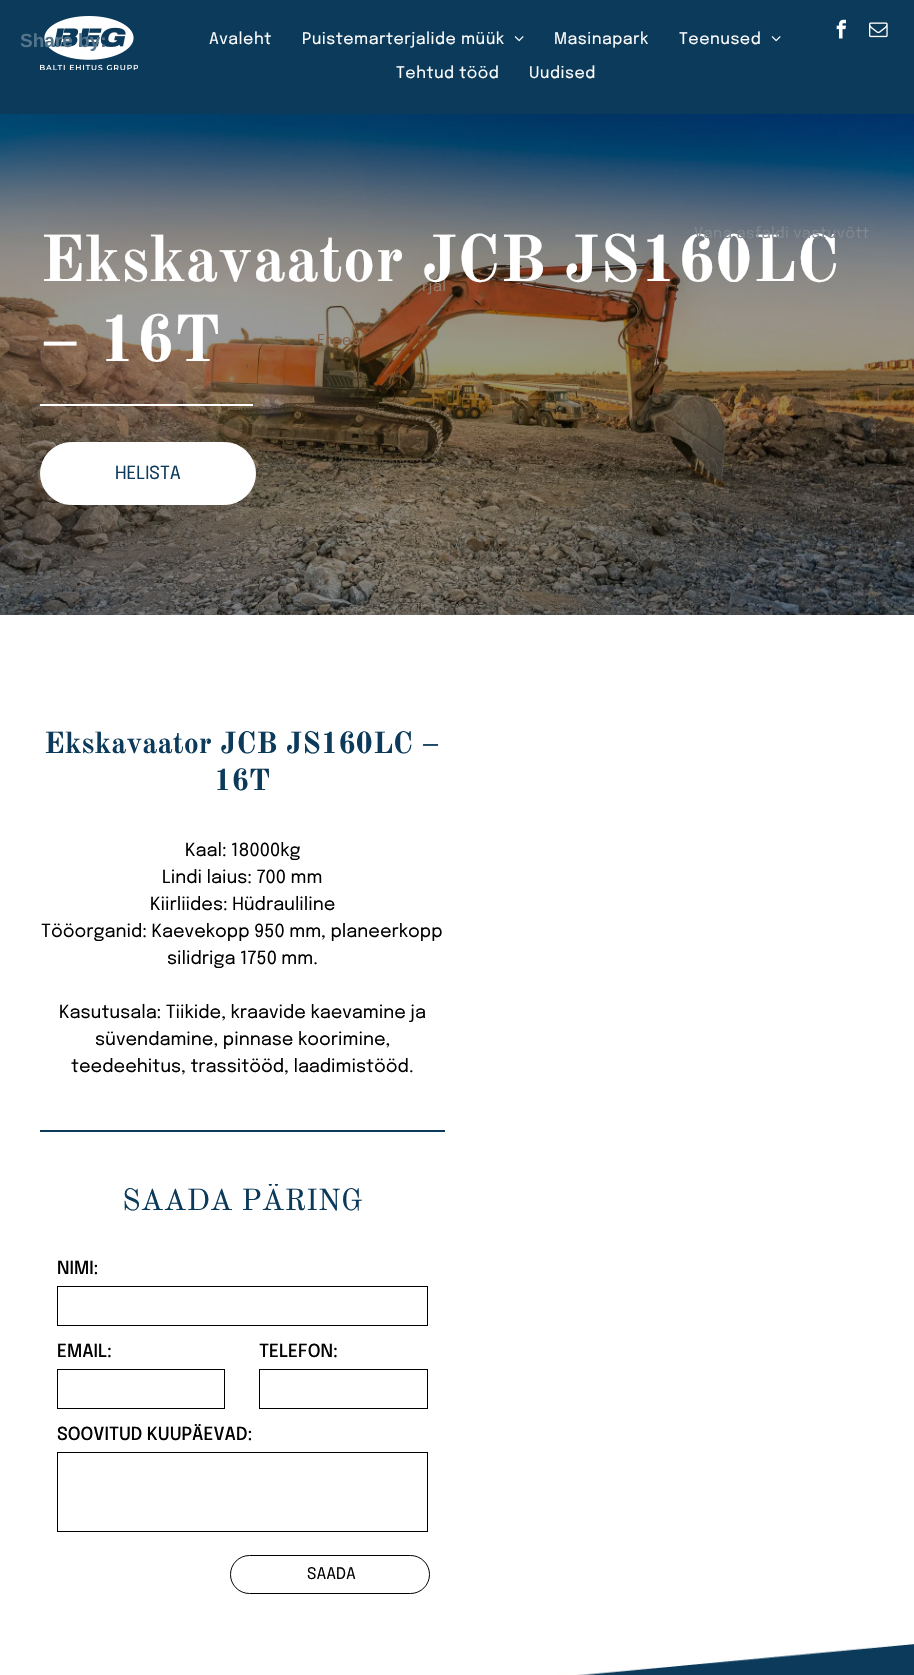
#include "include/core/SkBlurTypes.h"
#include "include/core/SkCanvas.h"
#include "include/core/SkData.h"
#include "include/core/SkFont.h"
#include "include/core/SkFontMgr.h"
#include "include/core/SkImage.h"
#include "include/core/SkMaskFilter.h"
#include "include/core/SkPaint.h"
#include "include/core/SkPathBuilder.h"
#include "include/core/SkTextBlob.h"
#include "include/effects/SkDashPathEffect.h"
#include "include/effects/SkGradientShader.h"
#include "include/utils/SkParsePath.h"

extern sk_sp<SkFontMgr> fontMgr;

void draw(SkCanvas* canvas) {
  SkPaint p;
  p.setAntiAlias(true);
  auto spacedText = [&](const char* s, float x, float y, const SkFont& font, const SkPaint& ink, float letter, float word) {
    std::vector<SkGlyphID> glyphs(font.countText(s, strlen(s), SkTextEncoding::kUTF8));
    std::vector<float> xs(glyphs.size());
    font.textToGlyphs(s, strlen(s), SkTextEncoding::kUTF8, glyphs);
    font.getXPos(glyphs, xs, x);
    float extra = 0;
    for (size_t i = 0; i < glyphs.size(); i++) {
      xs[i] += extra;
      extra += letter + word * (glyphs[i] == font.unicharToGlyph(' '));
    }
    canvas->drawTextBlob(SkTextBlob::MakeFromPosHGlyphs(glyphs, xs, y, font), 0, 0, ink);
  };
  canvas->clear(SK_ColorWHITE);
  p.setColor(SkColorSetRGB(12, 58, 90));
  canvas->drawRect(SkRect::MakeLTRB(0, 0, 914, 114), p);
  canvas->drawImageRect(SkImages::DeferredFromEncodedData(SkData::MakeFromFileName("images/1.png")), SkRect::MakeLTRB(40, 16, 138, 70), SkSamplingOptions());
  canvas->drawImageRect(SkImages::DeferredFromEncodedData(SkData::MakeFromFileName("images/2.png")), SkRect::MakeLTRB(836, 19, 846, 39), SkSamplingOptions());
  canvas->drawImageRect(SkImages::DeferredFromEncodedData(SkData::MakeFromFileName("images/3.png")), SkRect::MakeLTRB(869, 22, 888, 38), SkSamplingOptions());
  canvas->drawImageRect(SkImages::DeferredFromEncodedData(SkData::MakeFromFileName("images/4.png")), SkRect::MakeLTRB(514, 36, 524, 42), SkSamplingOptions());
  canvas->drawImageRect(SkImages::DeferredFromEncodedData(SkData::MakeFromFileName("images/4.png")), SkRect::MakeLTRB(771, 36, 781, 42), SkSamplingOptions());
  canvas->drawImageRect(SkImages::DeferredFromEncodedData(SkData::MakeFromFileName("images/5.png")), SkRect::MakeLTRB(0, 114, 914, 615), SkSamplingOptions());
  p.setColor(SK_ColorWHITE);
  canvas->drawRect(SkRect::MakeLTRB(40, 404, 253, 406), p);
  canvas->drawRoundRect(SkRect::MakeLTRB(40.5f, 442.5f, 255.5f, 504.5f), 31, 31, p);
  p.setStyle(SkPaint::kStroke_Style);
  p.setStrokeWidth(1);
  canvas->drawRoundRect(SkRect::MakeLTRB(40.5f, 442.5f, 255.5f, 504.5f), 31, 31, p);
  p.setStyle(SkPaint::kFill_Style);
  p.setColor(SkColorSetRGB(12, 58, 90));
  canvas->drawRect(SkRect::MakeLTRB(40, 1130, 445, 1132), p);
  p.setStyle(SkPaint::kStroke_Style);
  p.setColor(SK_ColorBLACK);
  canvas->drawRect(SkRect::MakeLTRB(57.5f, 1286.5f, 427.5f, 1325.5f), p);
  canvas->drawRect(SkRect::MakeLTRB(57.5f, 1369.5f, 224.5f, 1408.5f), p);
  canvas->drawRect(SkRect::MakeLTRB(259.5f, 1369.5f, 427.5f, 1408.5f), p);
  canvas->drawRect(SkRect::MakeLTRB(57.5f, 1452.5f, 427.5f, 1531.5f), p);
  canvas->drawRoundRect(SkRect::MakeLTRB(230.5f, 1555.5f, 429.5f, 1593.5f), 19, 19, p);
  p.setStyle(SkPaint::kFill_Style);
  p.setColor(SkColorSetRGB(12, 58, 90));
  canvas->drawRect(SkRect::MakeLTRB(576, 1644, 914, 1675), p);
  canvas->drawImageRect(SkImages::DeferredFromEncodedData(SkData::MakeFromFileName("images/6.png")), SkRect::MakeLTRB(0, 1644, 914, 1675), SkSamplingOptions());
  SkFont font1(fontMgr->matchFamilyStyle("Epilogue", SkFontStyle::Normal()), 16);
  font1.setSubpixel(true);
  p.setColor(SK_ColorWHITE);
  spacedText("Avaleht", 209, 44, font1, p, 0.5f, 0);
  spacedText("Puistemarterjalide müük", 302, 44, font1, p, 0.5f, 0);
  SkFont font2(fontMgr->matchFamilyStyle("Epilogue", SkFontStyle::Normal()), 15);
  font2.setSubpixel(true);
  p.setColor(SkColorSetRGB(145, 127, 114));
  spacedText("rjal", 422, 291, font2, p, 0.45f, 0);
  p.setColor(SkColorSetRGB(136, 98, 71));
  spacedText("Freesi", 317, 345, font2, p, 0.45f, 0);
  p.setColor(SK_ColorWHITE);
  spacedText("Masinapark", 554, 44, font1, p, 0.5f, 0);
  spacedText("Teenused", 679, 44, font1, p, 0.5f, 0);
  spacedText("Tehtud tööd", 396, 78, font1, p, 0.5f, 0);
  spacedText("Uudised", 529, 78, font1, p, 0.5f, 0);
  SkFont font3(fontMgr->matchFamilyStyle("Old Standard TT", SkFontStyle::Bold()), 65);
  font3.setSubpixel(true);
  canvas->drawString("Ekskavaator JCB JS160LC", 40, 281, font3, p);
  p.setColor(SkColorSetRGB(128, 136, 145));
  spacedText("Vana asfaldi vastuvõtt", 694, 238, font2, p, 0.45f, 0);
  p.setColor(SK_ColorWHITE);
  canvas->drawString("– 16T", 40, 361, font3, p);
  SkFont font4(fontMgr->matchFamilyStyle("Epilogue", SkFontStyle::Normal()), 18);
  font4.setSubpixel(true);
  p.setColor(SkColorSetRGB(12, 58, 90));
  canvas->drawString("HELISTA", 115, 479, font4, p);
  SkFont font5(fontMgr->matchFamilyStyle("Old Standard TT", SkFontStyle::Bold()), 30);
  font5.setSubpixel(true);
  canvas->drawString("Ekskavaator JCB JS160LC –", 44, 753, font5, p);
  canvas->drawString("16T", 214, 790, font5, p);
  p.setColor(SK_ColorBLACK);
  canvas->drawString("Kaal: 18000kg", 185, 856, font4, p);
  canvas->drawString("Lindi laius: 700 mm", 162, 883, font4, p);
  canvas->drawString("Kiirliides: Hüdrauliline", 150, 910, font4, p);
  canvas->drawString("Tööorganid: Kaevekopp 950 mm, planeerkopp", 41, 937, font4, p);
  canvas->drawString("silidriga 1750 mm.", 167, 964, font4, p);
  canvas->drawString("Kasutusala: Tiikide, kraavide kaevamine ja", 59, 1018, font4, p);
  canvas->drawString("süvendamine, pinnase koorimine,", 95, 1045, font4, p);
  canvas->drawString("teedeehitus, trassitööd, laadimistööd.", 71, 1072, font4, p);
  canvas->save();
  canvas->clipRect(SkRect::MakeLTRB(40, 1184, 445, 1221));
  SkFont font6(fontMgr->matchFamilyStyle("Old Standard TT", SkFontStyle::Normal()), 30);
  font6.setSubpixel(true);
  p.setColor(SkColorSetRGB(12, 58, 90));
  canvas->drawString("SAADA PÄRING", 122, 1210, font6, p);
  canvas->restore();
  SkFont font7(fontMgr->matchFamilyStyle("Epilogue", SkFontStyle(500, SkFontStyle::kNormal_Width, SkFontStyle::kUpright_Slant)), 18);
  font7.setSubpixel(true);
  p.setColor(SK_ColorBLACK);
  canvas->drawString("NIMI:", 57, 1274, font7, p);
  canvas->drawString("EMAIL:", 57, 1357, font7, p);
  canvas->drawString("TELEFON:", 259, 1357, font7, p);
  canvas->drawString("SOOVITUD KUUPÄEVAD:", 57, 1440, font7, p);
  canvas->drawString("SAADA", 307, 1579, font1, p);
  SkFont font8(fontMgr->matchFamilyStyle("Liberation Sans", SkFontStyle::Bold()), 19);
  font8.setSubpixel(true);
  p.setColor(SkColorSetRGB(84, 116, 139));
  canvas->drawString("Share by:", 20, 47, font8, p);
}
